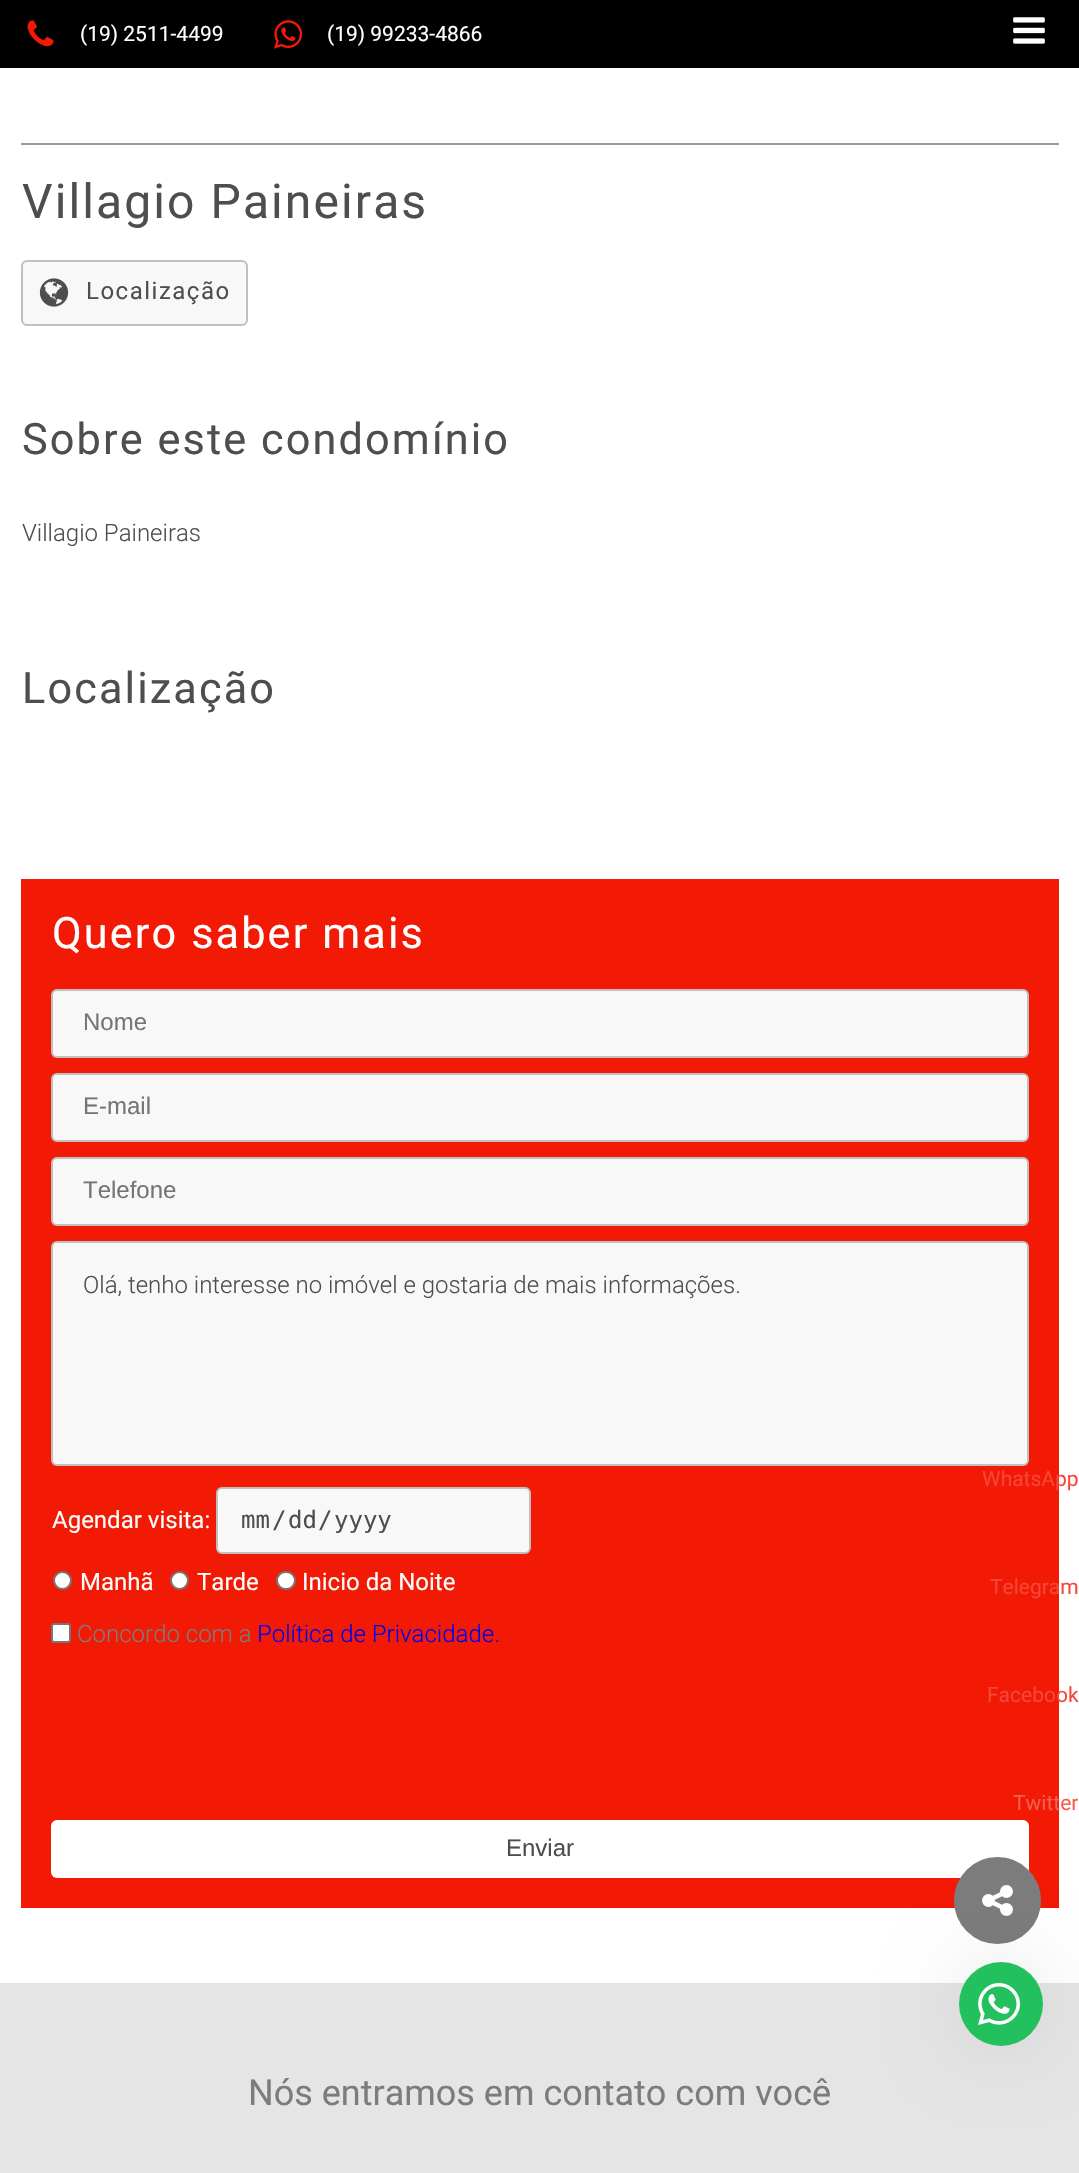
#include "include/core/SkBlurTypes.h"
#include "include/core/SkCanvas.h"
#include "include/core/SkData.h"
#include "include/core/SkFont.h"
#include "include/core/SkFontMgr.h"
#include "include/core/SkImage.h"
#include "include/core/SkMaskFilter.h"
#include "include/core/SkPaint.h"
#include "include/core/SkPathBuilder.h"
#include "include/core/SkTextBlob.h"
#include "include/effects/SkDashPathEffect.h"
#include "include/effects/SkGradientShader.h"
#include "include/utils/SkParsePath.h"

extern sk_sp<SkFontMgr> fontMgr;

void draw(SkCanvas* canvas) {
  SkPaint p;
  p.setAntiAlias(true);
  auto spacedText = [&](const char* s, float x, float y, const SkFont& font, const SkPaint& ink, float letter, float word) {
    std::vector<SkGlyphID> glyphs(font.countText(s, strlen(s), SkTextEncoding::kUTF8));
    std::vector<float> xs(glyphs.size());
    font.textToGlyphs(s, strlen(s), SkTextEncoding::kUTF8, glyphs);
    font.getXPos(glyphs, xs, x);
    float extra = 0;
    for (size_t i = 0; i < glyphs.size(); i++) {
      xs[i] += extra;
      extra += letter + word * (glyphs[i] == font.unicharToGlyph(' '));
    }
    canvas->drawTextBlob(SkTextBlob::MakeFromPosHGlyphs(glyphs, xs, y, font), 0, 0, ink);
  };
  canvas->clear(SK_ColorWHITE);
  p.setColor(SK_ColorBLACK);
  canvas->drawRect(SkRect::MakeLTRB(0, 0, 1079, 68), p);
  canvas->drawImageRect(SkImages::DeferredFromEncodedData(SkData::MakeFromFileName("images/1.png")), SkRect::MakeLTRB(27, 20, 54, 47), SkSamplingOptions());
  canvas->drawImageRect(SkImages::DeferredFromEncodedData(SkData::MakeFromFileName("images/2.png")), SkRect::MakeLTRB(273, 20, 303, 49), SkSamplingOptions());
  canvas->drawImageRect(SkImages::DeferredFromEncodedData(SkData::MakeFromFileName("images/3.png")), SkRect::MakeLTRB(1013, 17, 1045, 44), SkSamplingOptions());
  p.setColor(SkColorSetRGB(155, 155, 155));
  canvas->drawRect(SkRect::MakeLTRB(21, 143, 1059, 145), p);
  p.setColor(SkColorSetRGB(248, 248, 248));
  canvas->drawRoundRect(SkRect::MakeLTRB(22, 261, 247, 325), 5, 5, p);
  p.setStyle(SkPaint::kStroke_Style);
  p.setStrokeWidth(2);
  p.setColor(SkColorSetRGB(192, 192, 192));
  canvas->drawRoundRect(SkRect::MakeLTRB(22, 261, 247, 325), 5, 5, p);
  canvas->drawImageRect(SkImages::DeferredFromEncodedData(SkData::MakeFromFileName("images/4.png")), SkRect::MakeLTRB(39, 278, 69, 307), SkSamplingOptions());
  p.setStyle(SkPaint::kFill_Style);
  p.setColor(SkColorSetRGB(242, 25, 5));
  canvas->drawRect(SkRect::MakeLTRB(21, 879, 1059, 1908), p);
  p.setColor(SkColorSetRGB(248, 248, 248));
  canvas->drawRoundRect(SkRect::MakeLTRB(52, 990, 1028, 1057), 5, 5, p);
  p.setStyle(SkPaint::kStroke_Style);
  p.setColor(SkColorSetRGB(192, 192, 192));
  canvas->drawRoundRect(SkRect::MakeLTRB(52, 990, 1028, 1057), 5, 5, p);
  p.setStyle(SkPaint::kFill_Style);
  p.setColor(SkColorSetRGB(248, 248, 248));
  canvas->drawRoundRect(SkRect::MakeLTRB(52, 1074, 1028, 1141), 5, 5, p);
  p.setStyle(SkPaint::kStroke_Style);
  p.setColor(SkColorSetRGB(192, 192, 192));
  canvas->drawRoundRect(SkRect::MakeLTRB(52, 1074, 1028, 1141), 5, 5, p);
  p.setStyle(SkPaint::kFill_Style);
  p.setColor(SkColorSetRGB(248, 248, 248));
  canvas->drawRoundRect(SkRect::MakeLTRB(52, 1158, 1028, 1225), 5, 5, p);
  p.setStyle(SkPaint::kStroke_Style);
  p.setColor(SkColorSetRGB(192, 192, 192));
  canvas->drawRoundRect(SkRect::MakeLTRB(52, 1158, 1028, 1225), 5, 5, p);
  p.setStyle(SkPaint::kFill_Style);
  p.setColor(SkColorSetRGB(248, 248, 248));
  canvas->drawRoundRect(SkRect::MakeLTRB(52, 1242, 1028, 1465), 5, 5, p);
  p.setStyle(SkPaint::kStroke_Style);
  p.setColor(SkColorSetRGB(192, 192, 192));
  canvas->drawRoundRect(SkRect::MakeLTRB(52, 1242, 1028, 1465), 5, 5, p);
  p.setStyle(SkPaint::kFill_Style);
  p.setColor(SkColorSetRGB(248, 248, 248));
  canvas->drawRoundRect(SkRect::MakeLTRB(217, 1488, 530, 1553), 5, 5, p);
  p.setStyle(SkPaint::kStroke_Style);
  p.setColor(SkColorSetRGB(192, 192, 192));
  canvas->drawRoundRect(SkRect::MakeLTRB(217, 1488, 530, 1553), 5, 5, p);
  p.setStyle(SkPaint::kFill_Style);
  p.setColor(SK_ColorWHITE);
  canvas->drawCircle(62.5f, 1580.5f, 8.5f, p);
  p.setStyle(SkPaint::kStroke_Style);
  p.setColor(SkColorSetRGB(118, 118, 118));
  canvas->drawCircle(62.5f, 1580.5f, 8.5f, p);
  p.setStyle(SkPaint::kFill_Style);
  p.setColor(SK_ColorWHITE);
  canvas->drawCircle(179.5f, 1580.5f, 8.5f, p);
  p.setStyle(SkPaint::kStroke_Style);
  p.setColor(SkColorSetRGB(118, 118, 118));
  canvas->drawCircle(179.5f, 1580.5f, 8.5f, p);
  p.setStyle(SkPaint::kFill_Style);
  p.setColor(SK_ColorWHITE);
  canvas->drawRoundRect(SkRect::MakeLTRB(277, 1572, 295, 1589), 8.5f, 8.5f, p);
  p.setStyle(SkPaint::kStroke_Style);
  p.setColor(SkColorSetRGB(118, 118, 118));
  canvas->drawRoundRect(SkRect::MakeLTRB(277, 1572, 295, 1589), 8.5f, 8.5f, p);
  p.setStyle(SkPaint::kFill_Style);
  p.setColor(SK_ColorWHITE);
  canvas->drawRoundRect(SkRect::MakeLTRB(52, 1624, 70, 1642), 2, 2, p);
  p.setStyle(SkPaint::kStroke_Style);
  p.setColor(SkColorSetRGB(118, 118, 118));
  canvas->drawRoundRect(SkRect::MakeLTRB(52, 1624, 70, 1642), 2, 2, p);
  p.setStyle(SkPaint::kFill_Style);
  p.setColor(SK_ColorWHITE);
  canvas->drawRoundRect(SkRect::MakeLTRB(51, 1820, 1029, 1878), 6, 6, p);
  p.setColor(SkColorSetRGB(124, 124, 124));
  canvas->drawCircle(997.5f, 1900.5f, 42.5f, p);
  p.setStyle(SkPaint::kStroke_Style);
  canvas->drawCircle(997.5f, 1900.5f, 42.5f, p);
  canvas->drawImageRect(SkImages::DeferredFromEncodedData(SkData::MakeFromFileName("images/5.png")), SkRect::MakeLTRB(982, 1885, 1013, 1916), SkSamplingOptions());
  p.setStyle(SkPaint::kFill_Style);
  p.setColor(SkColorSetRGB(229, 229, 229));
  canvas->drawRect(SkRect::MakeLTRB(0, 1983, 1079, 2173), p);
  p.setColor(SkColorSetARGB(26, 0, 0, 0));
  p.setMaskFilter(SkMaskFilter::MakeBlur(kNormal_SkBlurStyle, 37.5f));
  canvas->drawRoundRect(SkRect::MakeLTRB(959, 1962, 1043, 2046), 42, 42, p);
  p.setMaskFilter(nullptr);
  p.setColor(SkColorSetRGB(34, 193, 94));
  canvas->drawCircle(1001, 2004, 42, p);
  canvas->drawImageRect(SkImages::DeferredFromEncodedData(SkData::MakeFromFileName("images/6.png")), SkRect::MakeLTRB(978, 1983, 1020, 2025), SkSamplingOptions());
  SkFont font1(fontMgr->matchFamilyStyle("Roboto", SkFontStyle::Normal()), 21);
  font1.setSubpixel(true);
  p.setColor(SK_ColorWHITE);
  canvas->drawString("(19) 2511-4499", 80, 41, font1, p);
  canvas->drawString("(19) 99233-4866", 327, 41, font1, p);
  SkFont font2(fontMgr->matchFamilyStyle("Roboto", SkFontStyle::Normal()), 48);
  font2.setSubpixel(true);
  p.setColor(SkColorSetRGB(78, 78, 78));
  spacedText("Villagio Paineiras", 22, 218, font2, p, 2.1f, 0);
  SkFont font3(fontMgr->matchFamilyStyle("Roboto", SkFontStyle::Normal()), 24);
  font3.setSubpixel(true);
  spacedText("Localização", 86, 299, font3, p, 1.5f, 0);
  SkFont font4(fontMgr->matchFamilyStyle("Roboto", SkFontStyle::Normal()), 43.25f);
  font4.setSubpixel(true);
  spacedText("Sobre este condomínio", 22, 454, font4, p, 2.1f, 0);
  SkFont font5(fontMgr->matchFamilyStyle("Roboto", SkFontStyle(300, SkFontStyle::kNormal_Width, SkFontStyle::kUpright_Slant)), 24);
  font5.setSubpixel(true);
  canvas->drawString("Villagio Paineiras", 22, 541, font5, p);
  spacedText("Localização", 22, 703, font4, p, 2.1f, 0);
  p.setColor(SK_ColorWHITE);
  spacedText("Quero saber mais", 52, 948, font4, p, 2.1f, 0);
  SkFont font6(fontMgr->matchFamilyStyle("Liberation Sans", SkFontStyle::Normal()), 24);
  font6.setSubpixel(true);
  p.setColor(SkColorSetRGB(117, 117, 117));
  canvas->drawString("Nome", 83, 1030, font6, p);
  canvas->drawString("E-mail", 83, 1114, font6, p);
  canvas->drawString("Telefone", 83, 1198, font6, p);
  p.setColor(SkColorSetRGB(78, 78, 78));
  canvas->drawString("Olá, tenho interesse no imóvel e gostaria de mais informações.", 83, 1293, font5, p);
  p.setColor(SK_ColorWHITE);
  canvas->drawString("Agendar visita:", 52, 1528, font3, p);
  SkFont font7(fontMgr->matchFamilyStyle("DejaVu Sans Mono", SkFontStyle::Normal()), 24);
  font7.setSubpixel(true);
  p.setColor(SkColorSetRGB(78, 78, 78));
  canvas->drawString("mm", 241, 1528, font7, p);
  canvas->drawString("/", 272, 1528, font7, p);
  canvas->drawString("dd", 288, 1528, font7, p);
  canvas->drawString("/", 318, 1528, font7, p);
  canvas->drawString("yyyy", 334, 1528, font7, p);
  p.setColor(SK_ColorWHITE);
  canvas->drawString("Manhã", 80, 1590, font3, p);
  canvas->drawString("Tarde", 197, 1590, font3, p);
  canvas->drawString("Inicio da Noite", 302, 1590, font3, p);
  p.setColor(SkColorSetRGB(124, 124, 124));
  canvas->drawString("Concordo com a", 77, 1642, font5, p);
  p.setColor(SkColorSetRGB(0, 0, 238));
  canvas->drawString("Política de Privacidade.", 257, 1642, font5, p);
  p.setColor(SkColorSetRGB(78, 78, 78));
  canvas->drawString("Enviar", 506, 1856, font6, p);
  p.setColor(SkColorSetRGB(245, 71, 55));
  canvas->drawString("WhatsApp", 982, 1486, font1, p);
  canvas->drawString("Telegram", 990, 1594, font1, p);
  canvas->drawString("Facebook", 987, 1702, font1, p);
  p.setColor(SkColorSetRGB(246, 94, 80));
  canvas->drawString("Twitter", 1013, 1810, font1, p);
  SkFont font8(fontMgr->matchFamilyStyle("Roboto", SkFontStyle::Normal()), 36);
  font8.setSubpixel(true);
  p.setColor(SkColorSetRGB(124, 124, 124));
  canvas->drawString("Nós entramos em contato com você", 248, 2105, font8, p);
}
